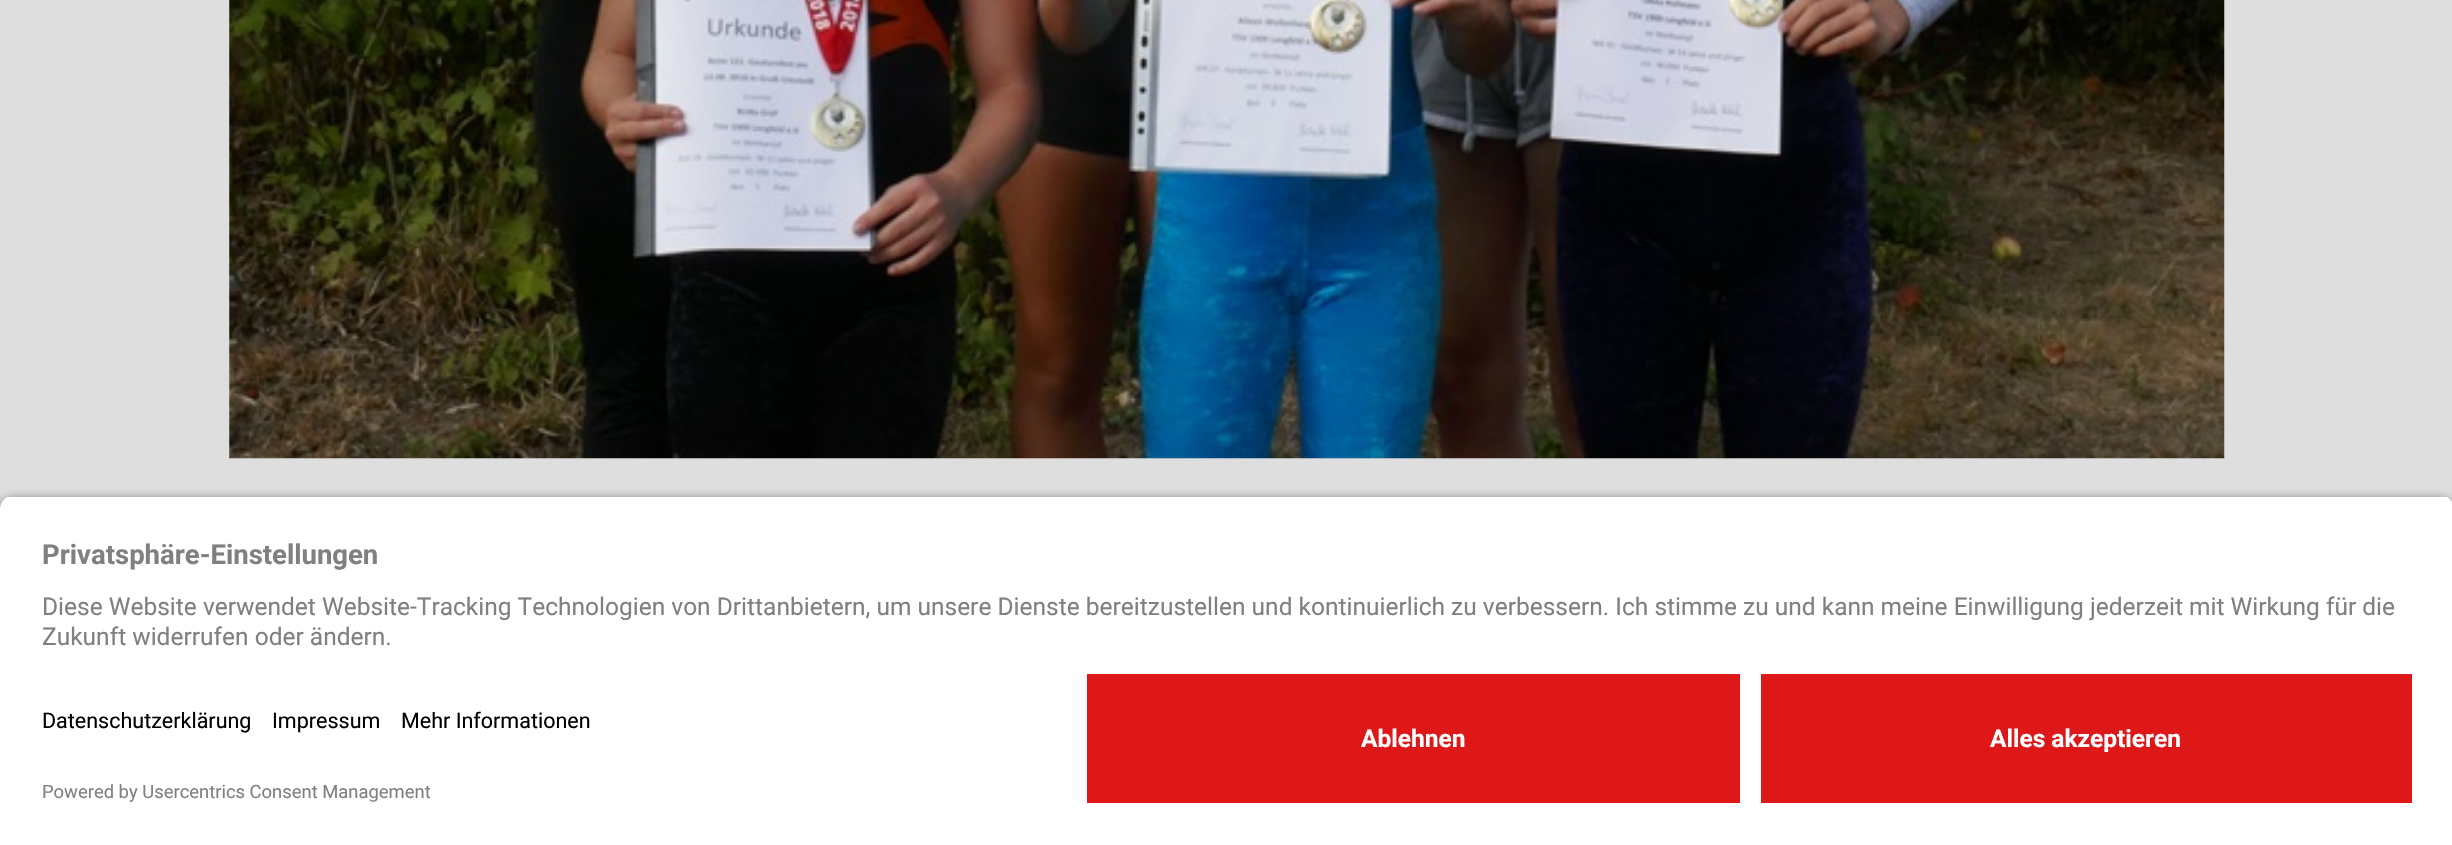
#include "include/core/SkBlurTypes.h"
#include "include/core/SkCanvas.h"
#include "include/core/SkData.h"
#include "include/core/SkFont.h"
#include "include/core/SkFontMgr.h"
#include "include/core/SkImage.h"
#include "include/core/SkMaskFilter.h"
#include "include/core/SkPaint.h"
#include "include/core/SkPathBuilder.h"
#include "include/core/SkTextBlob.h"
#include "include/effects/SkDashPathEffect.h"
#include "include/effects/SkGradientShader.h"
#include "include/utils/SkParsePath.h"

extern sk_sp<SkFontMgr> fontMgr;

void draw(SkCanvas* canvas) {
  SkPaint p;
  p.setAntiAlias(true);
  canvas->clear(SkColorSetRGB(222, 222, 222));
  canvas->drawImageRect(SkImages::DeferredFromEncodedData(SkData::MakeFromFileName("images/1.png")), SkRect::MakeLTRB(229, 0, 2225, 459), SkSamplingOptions());
  p.setColor(SkColorSetARGB(204, 0, 0, 0));
  p.setMaskFilter(SkMaskFilter::MakeBlur(kNormal_SkBlurStyle, 6));
  canvas->drawRoundRect(SkRect::MakeLTRB(0, 501, 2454, 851), 14, 14, p);
  p.setMaskFilter(nullptr);
  canvas->save();
  canvas->clipPath(SkPathBuilder().moveTo(14, 495).lineTo(2440, 495).cubicTo(2447.5f, 495, 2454, 501.5f, 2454, 509).lineTo(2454, 660).lineTo(0, 660).lineTo(0, 509).cubicTo(0, 501.5f, 6.5f, 495, 14, 495).close().detach(), true);
  p.setColor(SK_ColorWHITE);
  canvas->drawRect(SkRect::MakeLTRB(0, 497, 2452, 660), p);
  canvas->restore();
  canvas->drawRect(SkRect::MakeLTRB(0, 660, 2452, 845), p);
  p.setColor(SkColorSetRGB(222, 24, 24));
  canvas->drawRect(SkRect::MakeLTRB(1087, 674, 1740, 803), p);
  canvas->drawRect(SkRect::MakeLTRB(1761, 674, 2412, 803), p);
  SkFont font1(fontMgr->matchFamilyStyle("Roboto", SkFontStyle::Bold()), 27.5f);
  font1.setSubpixel(true);
  p.setColor(SkColorSetRGB(128, 128, 128));
  canvas->drawString("Privatsphäre-Einstellungen", 42, 564, font1, p);
  SkFont font2(fontMgr->matchFamilyStyle("Roboto", SkFontStyle::Normal()), 24.5f);
  font2.setSubpixel(true);
  canvas->drawString("Diese Website verwendet Website-Tracking Technologien von Drittanbietern, um unsere Dienste bereitzustellen und kontinuierlich zu verbessern. Ich stimme zu und kann meine Einwilligung jederzeit mit Wirkung für die", 42, 615, font2, p);
  canvas->drawString("Zukunft widerrufen oder ändern.", 42, 645, font2, p);
  SkFont font3(fontMgr->matchFamilyStyle("Roboto", SkFontStyle::Normal()), 21.5f);
  font3.setSubpixel(true);
  p.setColor(SK_ColorBLACK);
  canvas->drawString("Datenschutzerklärung", 42, 728, font3, p);
  canvas->drawString("Impressum", 272, 728, font3, p);
  canvas->drawString("Mehr Informationen", 401, 728, font3, p);
  SkFont font4(fontMgr->matchFamilyStyle("Roboto", SkFontStyle::Normal()), 18.4f);
  font4.setSubpixel(true);
  p.setColor(SkColorSetRGB(128, 128, 128));
  canvas->drawString("Powered by Usercentrics Consent Management", 42, 798, font4, p);
  SkFont font5(fontMgr->matchFamilyStyle("Roboto", SkFontStyle::Bold()), 24.5f);
  font5.setSubpixel(true);
  p.setColor(SK_ColorWHITE);
  canvas->drawString("Ablehnen", 1361, 747, font5, p);
  canvas->drawString("Alles akzeptieren", 1990, 747, font5, p);
}
